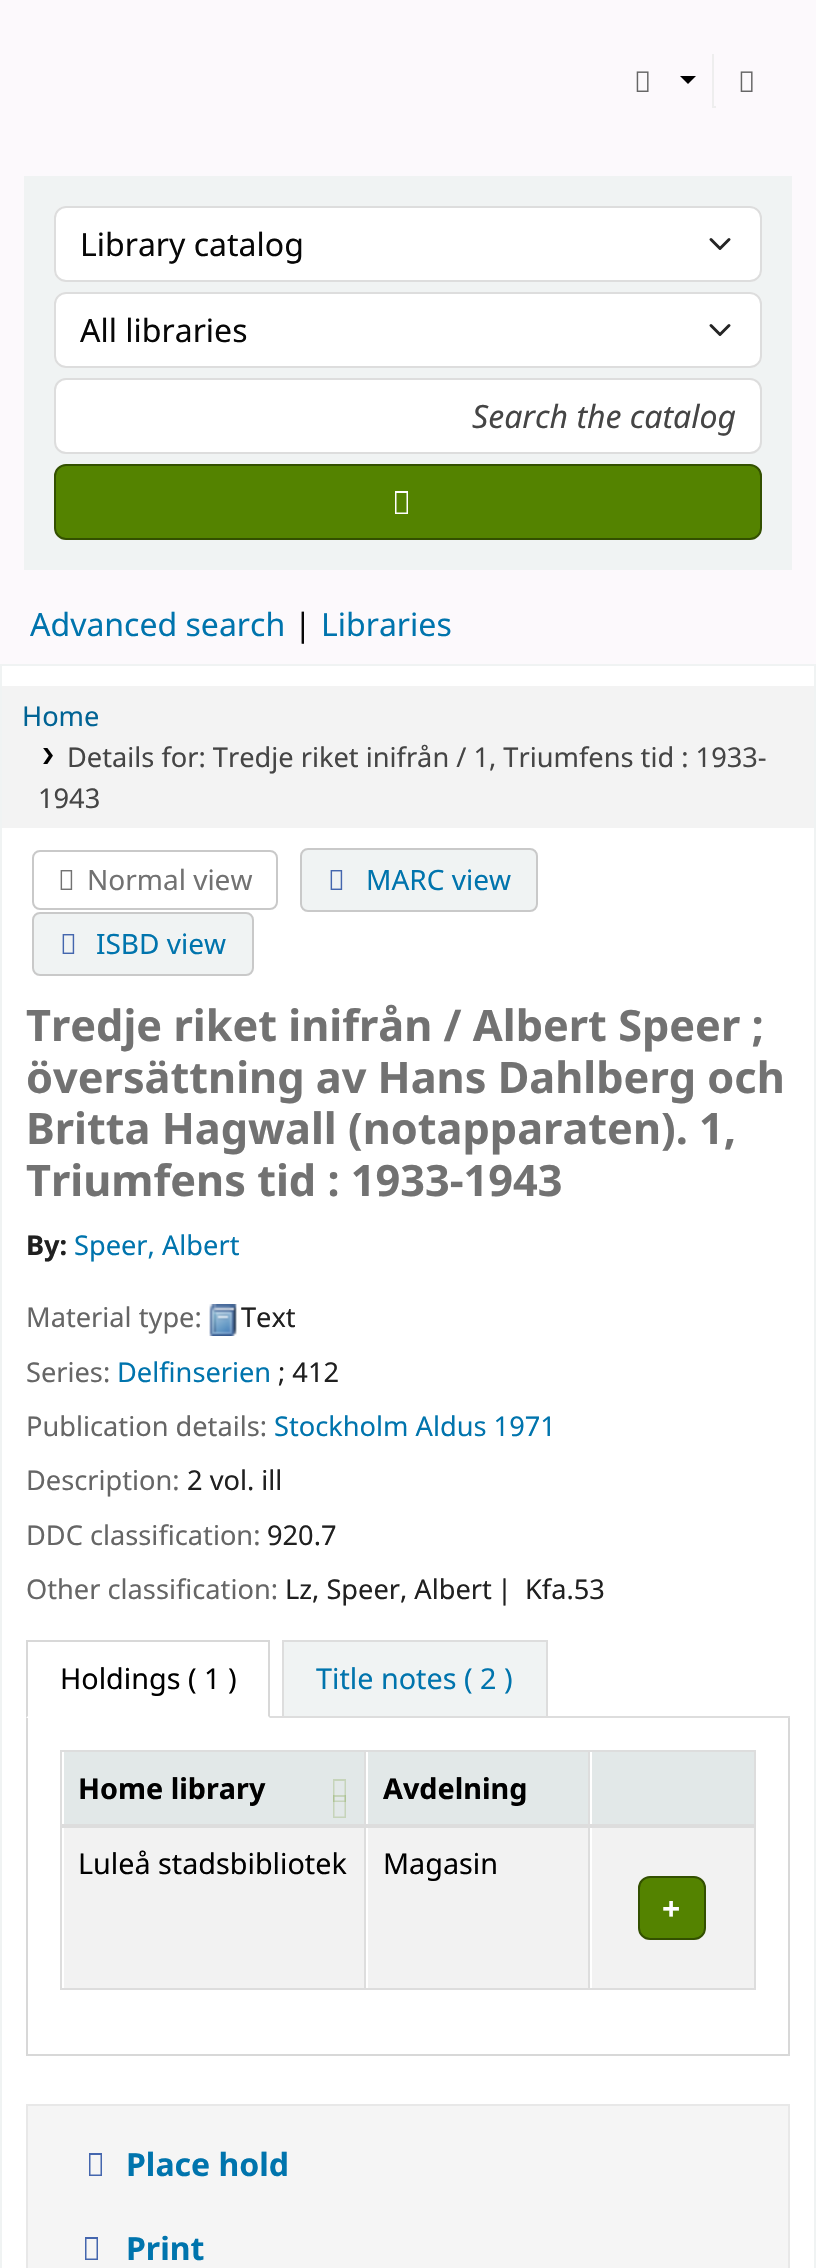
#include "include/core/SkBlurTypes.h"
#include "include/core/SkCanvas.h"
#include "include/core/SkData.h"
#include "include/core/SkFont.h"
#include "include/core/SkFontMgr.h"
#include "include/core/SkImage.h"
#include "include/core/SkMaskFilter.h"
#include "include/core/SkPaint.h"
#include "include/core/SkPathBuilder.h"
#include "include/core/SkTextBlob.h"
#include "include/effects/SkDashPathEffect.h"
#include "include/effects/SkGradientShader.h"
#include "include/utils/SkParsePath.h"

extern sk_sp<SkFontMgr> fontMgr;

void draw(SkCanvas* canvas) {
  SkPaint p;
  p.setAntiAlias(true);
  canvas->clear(SkColorSetRGB(252, 249, 252));
  canvas->drawImageRect(SkImages::DeferredFromEncodedData(SkData::MakeFromFileName("images/1.png")), SkRect::MakeLTRB(636, 71, 649, 92), SkSamplingOptions());
  p.setColor(SK_ColorBLACK);
  canvas->drawPath(SkPathBuilder().moveTo(680, 76).lineTo(696, 76).lineTo(688, 84).close().detach(), p);
  p.setColor(SkColorSetRGB(238, 238, 238));
  canvas->drawRect(SkRect::MakeLTRB(712, 106, 716, 108), p);
  canvas->drawRect(SkRect::MakeLTRB(712, 54, 714, 108), p);
  canvas->drawImageRect(SkImages::DeferredFromEncodedData(SkData::MakeFromFileName("images/1.png")), SkRect::MakeLTRB(740, 71, 753, 92), SkSamplingOptions());
  p.setColor(SkColorSetRGB(240, 243, 243));
  canvas->drawRect(SkRect::MakeLTRB(24, 176, 792, 570), p);
  p.setColor(SK_ColorWHITE);
  canvas->drawRoundRect(SkRect::MakeLTRB(54, 206, 762, 282), 12, 12, p);
  p.setStyle(SkPaint::kStroke_Style);
  p.setStrokeWidth(3);
  p.setStrokeCap(SkPaint::kRound_Cap);
  p.setStrokeJoin(SkPaint::kRound_Join);
  p.setColor(SkColorSetRGB(37, 37, 37));
  canvas->drawPath(SkPathBuilder().moveTo(711, 239.5f).lineTo(720, 248.5f).lineTo(729, 239.5f).detach(), p);
  p.setStrokeWidth(2);
  p.setStrokeCap(SkPaint::kButt_Cap);
  p.setStrokeJoin(SkPaint::kMiter_Join);
  p.setColor(SkColorSetRGB(221, 221, 221));
  canvas->drawRoundRect(SkRect::MakeLTRB(55, 207, 761, 281), 11, 11, p);
  p.setStyle(SkPaint::kFill_Style);
  p.setColor(SK_ColorWHITE);
  canvas->drawRoundRect(SkRect::MakeLTRB(54, 292, 762, 368), 12, 12, p);
  p.setStyle(SkPaint::kStroke_Style);
  p.setStrokeWidth(3);
  p.setStrokeCap(SkPaint::kRound_Cap);
  p.setStrokeJoin(SkPaint::kRound_Join);
  p.setColor(SkColorSetRGB(37, 37, 37));
  canvas->drawPath(SkPathBuilder().moveTo(711, 325.5f).lineTo(720, 334.5f).lineTo(729, 325.5f).detach(), p);
  p.setStrokeWidth(2);
  p.setStrokeCap(SkPaint::kButt_Cap);
  p.setStrokeJoin(SkPaint::kMiter_Join);
  p.setColor(SkColorSetRGB(221, 221, 221));
  canvas->drawRoundRect(SkRect::MakeLTRB(55, 293, 761, 367), 11, 11, p);
  p.setStyle(SkPaint::kFill_Style);
  p.setColor(SK_ColorWHITE);
  canvas->drawRoundRect(SkRect::MakeLTRB(55, 379, 761, 453), 11, 11, p);
  p.setStyle(SkPaint::kStroke_Style);
  p.setColor(SkColorSetRGB(221, 221, 221));
  canvas->drawRoundRect(SkRect::MakeLTRB(55, 379, 761, 453), 11, 11, p);
  p.setStyle(SkPaint::kFill_Style);
  p.setColor(SkColorSetRGB(84, 131, 0));
  canvas->drawRoundRect(SkRect::MakeLTRB(55, 465, 761, 539), 11, 11, p);
  p.setStyle(SkPaint::kStroke_Style);
  p.setColor(SkColorSetRGB(51, 80, 0));
  canvas->drawRoundRect(SkRect::MakeLTRB(55, 465, 761, 539), 11, 11, p);
  p.setStyle(SkPaint::kFill_Style);
  p.setColor(SK_ColorWHITE);
  canvas->drawPath(SkPathBuilder().moveTo(395, 514).lineTo(395, 491).lineTo(408, 491).lineTo(408, 514).close().moveTo(396.5f, 512.5f).lineTo(406.5f, 512.5f).lineTo(406.5f, 493).lineTo(396.5f, 493).close().detach(), p);
  canvas->drawRect(SkRect::MakeLTRB(1, 665, 815, 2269), p);
  p.setStyle(SkPaint::kStroke_Style);
  p.setColor(SkColorSetRGB(240, 243, 243));
  canvas->drawRect(SkRect::MakeLTRB(1, 665, 815, 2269), p);
  p.setStyle(SkPaint::kFill_Style);
  p.setColor(SkColorSetRGB(243, 243, 243));
  canvas->drawRect(SkRect::MakeLTRB(2, 686, 814, 828), p);
  canvas->drawImageRect(SkImages::DeferredFromEncodedData(SkData::MakeFromFileName("images/2.png")), SkRect::MakeLTRB(43, 748, 53, 764), SkSamplingOptions());
  p.setStyle(SkPaint::kStroke_Style);
  p.setColor(SkColorSetRGB(201, 201, 201));
  canvas->drawRoundRect(SkRect::MakeLTRB(33, 851, 277, 909), 7, 7, p);
  canvas->drawImageRect(SkImages::DeferredFromEncodedData(SkData::MakeFromFileName("images/3.png")), SkRect::MakeLTRB(60, 870, 73, 890), SkSamplingOptions());
  p.setStyle(SkPaint::kFill_Style);
  p.setColor(SkColorSetRGB(240, 243, 243));
  canvas->drawRoundRect(SkRect::MakeLTRB(301, 849, 537, 911), 7, 7, p);
  p.setStyle(SkPaint::kStroke_Style);
  p.setColor(SkColorSetRGB(201, 201, 201));
  canvas->drawRoundRect(SkRect::MakeLTRB(301, 849, 537, 911), 7, 7, p);
  canvas->drawImageRect(SkImages::DeferredFromEncodedData(SkData::MakeFromFileName("images/4.png")), SkRect::MakeLTRB(330, 870, 343, 890), SkSamplingOptions());
  p.setStyle(SkPaint::kFill_Style);
  p.setColor(SkColorSetRGB(240, 243, 243));
  canvas->drawRoundRect(SkRect::MakeLTRB(33, 913, 253, 975), 7, 7, p);
  p.setStyle(SkPaint::kStroke_Style);
  p.setColor(SkColorSetRGB(201, 201, 201));
  canvas->drawRoundRect(SkRect::MakeLTRB(33, 913, 253, 975), 7, 7, p);
  canvas->drawImageRect(SkImages::DeferredFromEncodedData(SkData::MakeFromFileName("images/4.png")), SkRect::MakeLTRB(62, 934, 75, 954), SkSamplingOptions());
  canvas->drawImageRect(SkImages::DeferredFromEncodedData(SkData::MakeFromFileName("images/5.png")), SkRect::MakeLTRB(209, 1304, 237, 1336), SkSamplingOptions());
  p.setStyle(SkPaint::kFill_Style);
  p.setColor(SkColorSetRGB(221, 221, 221));
  canvas->drawRect(SkRect::MakeLTRB(270, 1716, 790, 1718), p);
  p.setColor(SkColorSetRGB(216, 216, 216));
  canvas->drawRect(SkRect::MakeLTRB(26, 1640, 270, 1642), p);
  canvas->drawPath(SkPathBuilder().moveTo(270, 1640).lineTo(270, 1718).lineTo(268, 1716).lineTo(268, 1642).close().detach(), p);
  canvas->drawPath(SkPathBuilder().moveTo(26, 1718).lineTo(26, 1640).lineTo(28, 1642).lineTo(28, 1716).close().detach(), p);
  p.setColor(SkColorSetRGB(240, 243, 243));
  canvas->drawRect(SkRect::MakeLTRB(283, 1641, 547, 1717), p);
  p.setStyle(SkPaint::kStroke_Style);
  p.setColor(SkColorSetRGB(221, 221, 221));
  canvas->drawRect(SkRect::MakeLTRB(283, 1641, 547, 1717), p);
  p.setStyle(SkPaint::kFill_Style);
  p.setColor(SkColorSetRGB(216, 216, 216));
  canvas->drawRect(SkRect::MakeLTRB(788, 1718, 790, 2056), p);
  canvas->drawRect(SkRect::MakeLTRB(26, 2054, 790, 2056), p);
  canvas->drawRect(SkRect::MakeLTRB(26, 1718, 28, 2056), p);
  p.setColor(SkColorSetRGB(221, 221, 221));
  canvas->drawRect(SkRect::MakeLTRB(60, 1750, 756, 1752), p);
  p.setColor(SkColorSetRGB(226, 232, 232));
  canvas->drawRect(SkRect::MakeLTRB(64, 1752, 364, 1824), p);
  p.setColor(SkColorSetRGB(198, 212, 186));
  canvas->drawPath(SkPathBuilder().moveTo(333, 1802).lineTo(333, 1779).lineTo(346, 1779).lineTo(346, 1802).close().moveTo(334.5f, 1800.5f).lineTo(344.5f, 1800.5f).lineTo(344.5f, 1781).lineTo(334.5f, 1781).close().detach(), p);
  p.setColor(SkColorSetARGB(51, 84, 131, 0));
  canvas->drawPath(SkPathBuilder().moveTo(333, 1818).lineTo(333, 1795).lineTo(346, 1795).lineTo(346, 1818).close().moveTo(334.5f, 1816.5f).lineTo(344.5f, 1816.5f).lineTo(344.5f, 1797).lineTo(334.5f, 1797).close().detach(), p);
  p.setColor(SkColorSetRGB(226, 232, 232));
  canvas->drawRect(SkRect::MakeLTRB(368, 1752, 588, 1824), p);
  canvas->drawRect(SkRect::MakeLTRB(592, 1752, 754, 1824), p);
  p.setColor(SkColorSetRGB(221, 221, 221));
  canvas->drawRect(SkRect::MakeLTRB(60, 1824, 756, 1828), p);
  canvas->drawRect(SkRect::MakeLTRB(60, 1988, 756, 1990), p);
  p.setColor(SkColorSetRGB(242, 242, 242));
  canvas->drawRect(SkRect::MakeLTRB(64, 1828, 364, 1988), p);
  p.setColor(SkColorSetRGB(221, 221, 221));
  canvas->drawRect(SkRect::MakeLTRB(60, 1750, 62, 1990), p);
  p.setColor(SkColorSetRGB(242, 242, 242));
  canvas->drawRect(SkRect::MakeLTRB(368, 1828, 588, 1988), p);
  p.setColor(SkColorSetRGB(221, 221, 221));
  canvas->drawRect(SkRect::MakeLTRB(364, 1750, 366, 1990), p);
  p.setColor(SkColorSetRGB(242, 242, 242));
  canvas->drawRect(SkRect::MakeLTRB(592, 1828, 754, 1988), p);
  p.setColor(SkColorSetRGB(221, 221, 221));
  canvas->drawRect(SkRect::MakeLTRB(754, 1750, 756, 1990), p);
  canvas->drawRect(SkRect::MakeLTRB(588, 1750, 590, 1990), p);
  p.setColor(SkColorSetRGB(84, 131, 0));
  canvas->drawRoundRect(SkRect::MakeLTRB(639, 1877, 705, 1939), 11, 11, p);
  p.setStyle(SkPaint::kStroke_Style);
  p.setColor(SkColorSetRGB(51, 80, 0));
  canvas->drawRoundRect(SkRect::MakeLTRB(639, 1877, 705, 1939), 11, 11, p);
  p.setStyle(SkPaint::kFill_Style);
  p.setColor(SkColorSetRGB(245, 245, 245));
  canvas->drawRect(SkRect::MakeLTRB(27, 2105, 789, 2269), p);
  p.setStyle(SkPaint::kStroke_Style);
  p.setColor(SkColorSetRGB(232, 232, 232));
  canvas->drawRect(SkRect::MakeLTRB(27, 2105, 789, 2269), p);
  p.setStyle(SkPaint::kFill_Style);
  p.setColor(SkColorSetRGB(68, 102, 174));
  canvas->drawPath(SkPathBuilder().moveTo(89, 2176).lineTo(89, 2153).lineTo(102, 2153).lineTo(102, 2176).close().moveTo(90.5f, 2174.5f).lineTo(100.5f, 2174.5f).lineTo(100.5f, 2155).lineTo(90.5f, 2155).close().detach(), p);
  canvas->drawPath(SkPathBuilder().moveTo(85, 2260).lineTo(85, 2237).lineTo(98, 2237).lineTo(98, 2260).close().moveTo(86.5f, 2258.5f).lineTo(96.5f, 2258.5f).lineTo(96.5f, 2239).lineTo(86.5f, 2239).close().detach(), p);
  SkFont font1(fontMgr->matchFamilyStyle("Noto Sans", SkFontStyle::Normal()), 32);
  font1.setSubpixel(true);
  p.setColor(SkColorSetRGB(7, 7, 7));
  canvas->drawString("Library catalog", 80, 256, font1, p);
  canvas->drawString("All libraries", 80, 342, font1, p);
  SkFont font2(fontMgr->matchFamilyStyle("Noto Sans", SkFontStyle::Italic()), 32);
  font2.setSubpixel(true);
  p.setColor(SkColorSetRGB(69, 69, 69));
  canvas->drawString("Search the catalog", 472, 428, font2, p);
  p.setColor(SkColorSetRGB(0, 116, 173));
  canvas->drawString("Advanced search", 30, 636, font1, p);
  p.setColor(SkColorSetRGB(7, 7, 7));
  canvas->drawString("|", 294, 636, font1, p);
  p.setColor(SkColorSetRGB(0, 116, 173));
  canvas->drawString("Libraries", 321, 636, font1, p);
  SkFont font3(fontMgr->matchFamilyStyle("Noto Sans", SkFontStyle::Normal()), 27.2f);
  font3.setSubpixel(true);
  p.setColor(SkColorSetRGB(0, 99, 148));
  canvas->drawString("Home", 22, 726, font3, p);
  p.setColor(SkColorSetRGB(69, 69, 69));
  canvas->drawString("Details for: Tredje riket inifrån / 1, Triumfens tid : 1933-", 67, 767, font3, p);
  canvas->drawString("1943", 38, 808, font3, p);
  SkFont font4(fontMgr->matchFamilyStyle("Noto Sans", SkFontStyle::Normal()), 28);
  font4.setSubpixel(true);
  p.setColor(SkColorSetRGB(114, 114, 114));
  canvas->drawString("Normal view", 87, 890, font4, p);
  p.setColor(SkColorSetRGB(0, 116, 173));
  canvas->drawString("MARC view", 366, 890, font4, p);
  canvas->drawString("ISBD view", 96, 954, font4, p);
  SkFont font5(fontMgr->matchFamilyStyle("Noto Sans", SkFontStyle::Bold()), 43.25f);
  font5.setSubpixel(true);
  p.setColor(SkColorSetRGB(114, 114, 114));
  canvas->drawString("Tredje riket inifrån / Albert Speer ;", 26, 1041, font5, p);
  canvas->drawString("översättning av Hans Dahlberg och", 26, 1093, font5, p);
  canvas->drawString("Britta Hagwall (notapparaten).", 26, 1144, font5, p);
  canvas->drawString("1,", 699, 1144, font5, p);
  canvas->drawString("Triumfens tid : 1933-1943", 26, 1196, font5, p);
  SkFont font6(fontMgr->matchFamilyStyle("Noto Sans", SkFontStyle::Bold()), 27.2f);
  font6.setSubpixel(true);
  p.setColor(SkColorSetRGB(32, 32, 32));
  canvas->drawString("By:", 26, 1255, font6, p);
  p.setColor(SkColorSetRGB(0, 116, 173));
  canvas->drawString("Speer, Albert", 74, 1255, font3, p);
  p.setColor(SkColorSetRGB(102, 102, 102));
  canvas->drawString("Material type:", 26, 1327, font3, p);
  p.setColor(SkColorSetRGB(32, 32, 32));
  canvas->drawString("Text", 241, 1327, font3, p);
  p.setColor(SkColorSetRGB(102, 102, 102));
  canvas->drawString("Series:", 26, 1382, font3, p);
  p.setColor(SkColorSetRGB(0, 116, 173));
  canvas->drawString("Delfinserien", 117, 1382, font3, p);
  p.setColor(SkColorSetRGB(32, 32, 32));
  canvas->drawString("; 412", 278, 1382, font3, p);
  p.setColor(SkColorSetRGB(102, 102, 102));
  canvas->drawString("Publication details:", 26, 1436, font3, p);
  p.setColor(SkColorSetRGB(0, 116, 173));
  canvas->drawString("Stockholm Aldus 1971", 274, 1436, font3, p);
  p.setColor(SkColorSetRGB(102, 102, 102));
  canvas->drawString("Description:", 26, 1490, font3, p);
  p.setColor(SkColorSetRGB(32, 32, 32));
  canvas->drawString("2 vol. ill", 187, 1490, font3, p);
  p.setColor(SkColorSetRGB(102, 102, 102));
  canvas->drawString("DDC classification:", 26, 1545, font3, p);
  p.setColor(SkColorSetRGB(32, 32, 32));
  canvas->drawString("920.7", 267, 1545, font3, p);
  p.setColor(SkColorSetRGB(102, 102, 102));
  canvas->drawString("Other classification:", 26, 1599, font3, p);
  p.setColor(SkColorSetRGB(32, 32, 32));
  canvas->drawString("Lz, Speer, Albert", 285, 1599, font3, p);
  canvas->drawString("|", 497, 1599, font3, p);
  canvas->drawString("Kfa.53", 525, 1599, font3, p);
  SkFont font7(fontMgr->matchFamilyStyle("Noto Sans", SkFontStyle::Normal()), 28.75f);
  font7.setSubpixel(true);
  p.setColor(SK_ColorBLACK);
  canvas->drawString("Holdings ( 1 )", 60, 1689, font7, p);
  p.setColor(SkColorSetRGB(0, 116, 173));
  canvas->drawString("Title notes ( 2 )", 316, 1689, font7, p);
  SkFont font8(fontMgr->matchFamilyStyle("Noto Sans", SkFontStyle::Bold()), 28.75f);
  font8.setSubpixel(true);
  p.setColor(SK_ColorBLACK);
  canvas->drawString("Home library", 78, 1799, font8, p);
  canvas->drawString("Avdelning", 383, 1799, font8, p);
  canvas->drawString("Luleå stadsbibliotek", 78, 1874, font7, p);
  canvas->drawString("Magasin", 383, 1874, font7, p);
  SkFont font9(fontMgr->matchFamilyStyle("Noto Sans", SkFontStyle::Bold()), 32);
  font9.setSubpixel(true);
  p.setColor(SK_ColorWHITE);
  canvas->drawString("+", 662, 1920, font9, p);
  p.setColor(SkColorSetRGB(0, 116, 173));
  canvas->drawString("Place hold", 126, 2176, font9, p);
  canvas->drawString("Print", 126, 2260, font9, p);
}
